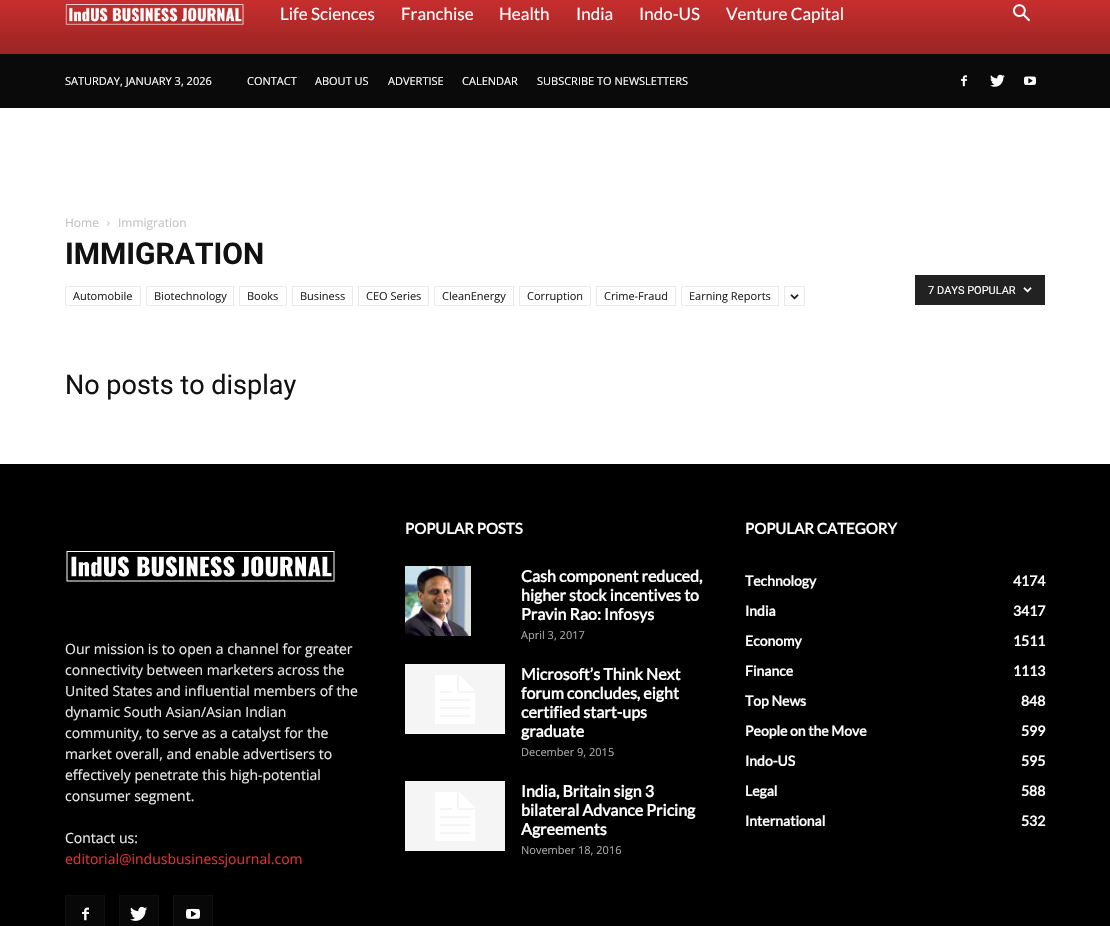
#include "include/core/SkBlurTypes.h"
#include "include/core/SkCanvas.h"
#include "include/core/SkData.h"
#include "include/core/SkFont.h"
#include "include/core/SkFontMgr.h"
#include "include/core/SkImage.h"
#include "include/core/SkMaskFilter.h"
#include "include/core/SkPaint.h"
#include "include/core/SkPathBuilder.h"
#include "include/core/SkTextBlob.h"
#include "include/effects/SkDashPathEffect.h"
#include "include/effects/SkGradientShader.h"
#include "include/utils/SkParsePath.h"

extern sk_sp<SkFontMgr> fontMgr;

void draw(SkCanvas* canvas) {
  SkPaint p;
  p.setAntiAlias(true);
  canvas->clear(SK_ColorWHITE);
  {
    const SkColor colors[] = {SkColorSetRGB(221, 51, 51), SkColorSetRGB(155, 36, 36)};
    const float stops[] = {0, 1};
    const SkPoint ends[] = {{555, -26}, {555, 54}};
    p.setShader(SkGradientShader::MakeLinear(ends, colors, stops, 2, SkTileMode::kClamp));
    p.setAlpha(255);
  }
  canvas->drawRect(SkRect::MakeLTRB(0, 0, 1110, 54), p);
  canvas->drawImageRect(SkImages::DeferredFromEncodedData(SkData::MakeFromFileName("images/1.png")), SkRect::MakeLTRB(65, 4, 244, 25), SkSamplingOptions());
  canvas->drawImageRect(SkImages::DeferredFromEncodedData(SkData::MakeFromFileName("images/2.png")), SkRect::MakeLTRB(1013, 4, 1030, 22), SkSamplingOptions());
  p.setShader(nullptr);
  p.setColor(SkColorSetRGB(10, 10, 10));
  canvas->drawRect(SkRect::MakeLTRB(0, 54, 1110, 108), p);
  canvas->drawImageRect(SkImages::DeferredFromEncodedData(SkData::MakeFromFileName("images/3.png")), SkRect::MakeLTRB(961, 75, 967, 87), SkSamplingOptions());
  canvas->drawImageRect(SkImages::DeferredFromEncodedData(SkData::MakeFromFileName("images/4.png")), SkRect::MakeLTRB(990, 74, 1005, 87), SkSamplingOptions());
  canvas->drawImageRect(SkImages::DeferredFromEncodedData(SkData::MakeFromFileName("images/5.png")), SkRect::MakeLTRB(1024, 76, 1036, 85), SkSamplingOptions());
  canvas->drawImageRect(SkImages::DeferredFromEncodedData(SkData::MakeFromFileName("images/6.png")), SkRect::MakeLTRB(107, 221, 110, 226), SkSamplingOptions());
  p.setStyle(SkPaint::kStroke_Style);
  p.setStrokeWidth(1);
  p.setColor(SkColorSetRGB(234, 234, 234));
  canvas->drawRect(SkRect::MakeLTRB(65.5f, 286.5f, 140.5f, 305.5f), p);
  canvas->drawRect(SkRect::MakeLTRB(146.5f, 286.5f, 233.5f, 305.5f), p);
  canvas->drawRect(SkRect::MakeLTRB(239.5f, 286.5f, 286.5f, 305.5f), p);
  canvas->drawRect(SkRect::MakeLTRB(292.5f, 286.5f, 352.5f, 305.5f), p);
  canvas->drawRect(SkRect::MakeLTRB(358.5f, 286.5f, 428.5f, 305.5f), p);
  canvas->drawRect(SkRect::MakeLTRB(434.5f, 286.5f, 513.5f, 305.5f), p);
  canvas->drawRect(SkRect::MakeLTRB(519.5f, 286.5f, 590.5f, 305.5f), p);
  canvas->drawRect(SkRect::MakeLTRB(596.5f, 286.5f, 675.5f, 305.5f), p);
  canvas->drawRect(SkRect::MakeLTRB(681.5f, 286.5f, 778.5f, 305.5f), p);
  canvas->drawRect(SkRect::MakeLTRB(784.5f, 286.5f, 804.5f, 305.5f), p);
  canvas->drawImageRect(SkImages::DeferredFromEncodedData(SkData::MakeFromFileName("images/7.png")), SkRect::MakeLTRB(790, 294, 799, 300), SkSamplingOptions());
  p.setStyle(SkPaint::kFill_Style);
  p.setColor(SkColorSetRGB(34, 34, 34));
  canvas->drawRect(SkRect::MakeLTRB(915, 275, 1045, 305), p);
  canvas->drawImageRect(SkImages::DeferredFromEncodedData(SkData::MakeFromFileName("images/8.png")), SkRect::MakeLTRB(1023, 287, 1032, 293), SkSamplingOptions());
  p.setColor(SK_ColorBLACK);
  canvas->drawRect(SkRect::MakeLTRB(0, 464, 1110, 926), p);
  canvas->drawImageRect(SkImages::DeferredFromEncodedData(SkData::MakeFromFileName("images/9.png")), SkRect::MakeLTRB(66, 551, 335, 582), SkSamplingOptions());
  p.setColor(SkColorSetRGB(8, 8, 8));
  canvas->drawRect(SkRect::MakeLTRB(66, 896, 104, 926), p);
  canvas->drawImageRect(SkImages::DeferredFromEncodedData(SkData::MakeFromFileName("images/10.png")), SkRect::MakeLTRB(82, 907, 89, 921), SkSamplingOptions());
  p.setStyle(SkPaint::kStroke_Style);
  p.setColor(SkColorSetRGB(15, 15, 15));
  canvas->drawRect(SkRect::MakeLTRB(65.5f, 895.5f, 104.5f, 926.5f), p);
  p.setStyle(SkPaint::kFill_Style);
  p.setColor(SkColorSetRGB(8, 8, 8));
  canvas->drawRect(SkRect::MakeLTRB(120, 896, 158, 926), p);
  canvas->drawImageRect(SkImages::DeferredFromEncodedData(SkData::MakeFromFileName("images/11.png")), SkRect::MakeLTRB(130, 906, 148, 921), SkSamplingOptions());
  p.setStyle(SkPaint::kStroke_Style);
  p.setColor(SkColorSetRGB(15, 15, 15));
  canvas->drawRect(SkRect::MakeLTRB(119.5f, 895.5f, 158.5f, 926.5f), p);
  p.setStyle(SkPaint::kFill_Style);
  p.setColor(SkColorSetRGB(8, 8, 8));
  canvas->drawRect(SkRect::MakeLTRB(174, 896, 212, 926), p);
  canvas->drawImageRect(SkImages::DeferredFromEncodedData(SkData::MakeFromFileName("images/12.png")), SkRect::MakeLTRB(186, 908, 200, 919), SkSamplingOptions());
  p.setStyle(SkPaint::kStroke_Style);
  p.setColor(SkColorSetRGB(15, 15, 15));
  canvas->drawRect(SkRect::MakeLTRB(173.5f, 895.5f, 212.5f, 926.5f), p);
  canvas->drawImageRect(SkImages::DeferredFromEncodedData(SkData::MakeFromFileName("images/13.png")), SkRect::MakeLTRB(405, 566, 471, 636), SkSamplingOptions());
  canvas->drawImageRect(SkImages::DeferredFromEncodedData(SkData::MakeFromFileName("images/14.png")), SkRect::MakeLTRB(405, 664, 505, 734), SkSamplingOptions());
  canvas->drawImageRect(SkImages::DeferredFromEncodedData(SkData::MakeFromFileName("images/14.png")), SkRect::MakeLTRB(405, 781, 505, 851), SkSamplingOptions());
  SkFont font1(fontMgr->matchFamilyStyle("Lato", SkFontStyle::Normal()), 17);
  font1.setSubpixel(true);
  p.setStyle(SkPaint::kFill_Style);
  p.setColor(SK_ColorWHITE);
  canvas->drawString("Life Sciences", 280, 20, font1, p);
  canvas->drawString("Franchise", 401, 20, font1, p);
  canvas->drawString("Health", 499, 20, font1, p);
  canvas->drawString("India", 576, 20, font1, p);
  canvas->drawString("Indo-US", 639, 20, font1, p);
  canvas->drawString("Venture Capital", 726, 20, font1, p);
  SkFont font2(fontMgr->matchFamilyStyle("Open Sans", SkFontStyle::Normal()), 11);
  font2.setSubpixel(true);
  canvas->drawString("SATURDAY, JANUARY 3, 2026", 65, 85, font2, p);
  canvas->drawString("CONTACT", 247, 85, font2, p);
  canvas->drawString("ABOUT US", 315, 85, font2, p);
  canvas->drawString("ADVERTISE", 388, 85, font2, p);
  canvas->drawString("CALENDAR", 462, 85, font2, p);
  canvas->drawString("SUBSCRIBE TO NEWSLETTERS", 537, 85, font2, p);
  SkFont font3(fontMgr->matchFamilyStyle("Open Sans", SkFontStyle::Normal()), 12);
  font3.setSubpixel(true);
  p.setColor(SkColorSetRGB(195, 195, 195));
  canvas->drawString("Home", 65, 227, font3, p);
  canvas->drawString("Immigration", 118, 227, font3, p);
  SkFont font4(fontMgr->matchFamilyStyle("Roboto", SkFontStyle::Bold()), 30);
  font4.setSubpixel(true);
  p.setColor(SkColorSetRGB(17, 17, 17));
  canvas->drawString("IMMIGRATION", 65, 264, font4, p);
  p.setColor(SkColorSetRGB(34, 34, 34));
  canvas->drawString("Automobile", 73, 300, font2, p);
  canvas->drawString("Biotechnology", 154, 300, font2, p);
  canvas->drawString("Books", 247, 300, font2, p);
  canvas->drawString("Business", 300, 300, font2, p);
  canvas->drawString("CEO Series", 366, 300, font2, p);
  canvas->drawString("CleanEnergy", 442, 300, font2, p);
  canvas->drawString("Corruption", 527, 300, font2, p);
  canvas->drawString("Crime-Fraud", 604, 300, font2, p);
  canvas->drawString("Earning Reports", 689, 300, font2, p);
  SkFont font5(fontMgr->matchFamilyStyle("Roboto", SkFontStyle::Normal()), 11);
  font5.setSubpixel(true);
  p.setColor(SK_ColorWHITE);
  canvas->drawString("7 DAYS POPULAR", 928, 294, font5, p);
  SkFont font6(fontMgr->matchFamilyStyle("Roboto", SkFontStyle::Normal()), 27);
  font6.setSubpixel(true);
  p.setColor(SkColorSetRGB(17, 17, 17));
  canvas->drawString("No posts to display", 65, 394, font6, p);
  SkFont font7(fontMgr->matchFamilyStyle("Open Sans", SkFontStyle::Normal()), 14);
  font7.setSubpixel(true);
  p.setColor(SkColorSetRGB(234, 234, 234));
  canvas->drawString("Our mission is to open a channel for greater", 65, 654, font7, p);
  canvas->drawString("connectivity between marketers across the", 65, 675, font7, p);
  canvas->drawString("United States and influential members of the", 65, 696, font7, p);
  canvas->drawString("dynamic South Asian/Asian Indian", 65, 717, font7, p);
  canvas->drawString("community, to serve as a catalyst for the", 65, 738, font7, p);
  canvas->drawString("market overall, and enable advertisers to", 65, 759, font7, p);
  canvas->drawString("effectively penetrate this high-potential", 65, 780, font7, p);
  canvas->drawString("consumer segment.", 65, 801, font7, p);
  canvas->drawString("Contact us:", 65, 843, font7, p);
  p.setColor(SkColorSetRGB(221, 51, 51));
  canvas->drawString("editorial@indusbusinessjournal.com", 65, 864, font7, p);
  SkFont font8(fontMgr->matchFamilyStyle("Lato", SkFontStyle::Bold()), 15);
  font8.setSubpixel(true);
  p.setColor(SK_ColorWHITE);
  canvas->drawString("POPULAR POSTS", 405, 534, font8, p);
  SkFont font9(fontMgr->matchFamilyStyle("Lato", SkFontStyle::Bold()), 16);
  font9.setSubpixel(true);
  canvas->drawString("Cash component reduced,", 521, 582, font9, p);
  canvas->drawString("higher stock incentives to", 521, 601, font9, p);
  canvas->drawString("Pravin Rao: Infosys", 521, 620, font9, p);
  p.setColor(SkColorSetRGB(170, 170, 170));
  canvas->drawString("April 3, 2017", 521, 639, font2, p);
  p.setColor(SK_ColorWHITE);
  canvas->drawString("Microsoft’s Think Next", 521, 680, font9, p);
  canvas->drawString("forum concludes, eight", 521, 699, font9, p);
  canvas->drawString("certified start-ups", 521, 718, font9, p);
  canvas->drawString("graduate", 521, 737, font9, p);
  p.setColor(SkColorSetRGB(170, 170, 170));
  canvas->drawString("December 9, 2015", 521, 756, font2, p);
  p.setColor(SK_ColorWHITE);
  canvas->drawString("India, Britain sign 3", 521, 797, font9, p);
  canvas->drawString("bilateral Advance Pricing", 521, 816, font9, p);
  canvas->drawString("Agreements", 521, 835, font9, p);
  p.setColor(SkColorSetRGB(170, 170, 170));
  canvas->drawString("November 18, 2016", 521, 854, font2, p);
  p.setColor(SK_ColorWHITE);
  canvas->drawString("POPULAR CATEGORY", 745, 534, font8, p);
  SkFont font10(fontMgr->matchFamilyStyle("Lato", SkFontStyle::Bold()), 14);
  font10.setSubpixel(true);
  canvas->drawString("Technology", 745, 586, font10, p);
  canvas->drawString("4174", 1013, 586, font10, p);
  canvas->drawString("India", 745, 616, font10, p);
  canvas->drawString("3417", 1013, 616, font10, p);
  canvas->drawString("Economy", 745, 646, font10, p);
  canvas->drawString("1511", 1013, 646, font10, p);
  canvas->drawString("Finance", 745, 676, font10, p);
  canvas->drawString("1113", 1013, 676, font10, p);
  canvas->drawString("Top News", 745, 706, font10, p);
  canvas->drawString("848", 1021, 706, font10, p);
  canvas->drawString("People on the Move", 745, 736, font10, p);
  canvas->drawString("599", 1021, 736, font10, p);
  canvas->drawString("Indo-US", 745, 766, font10, p);
  canvas->drawString("595", 1021, 766, font10, p);
  canvas->drawString("Legal", 745, 796, font10, p);
  canvas->drawString("588", 1021, 796, font10, p);
  canvas->drawString("International", 745, 826, font10, p);
  canvas->drawString("532", 1021, 826, font10, p);
}
